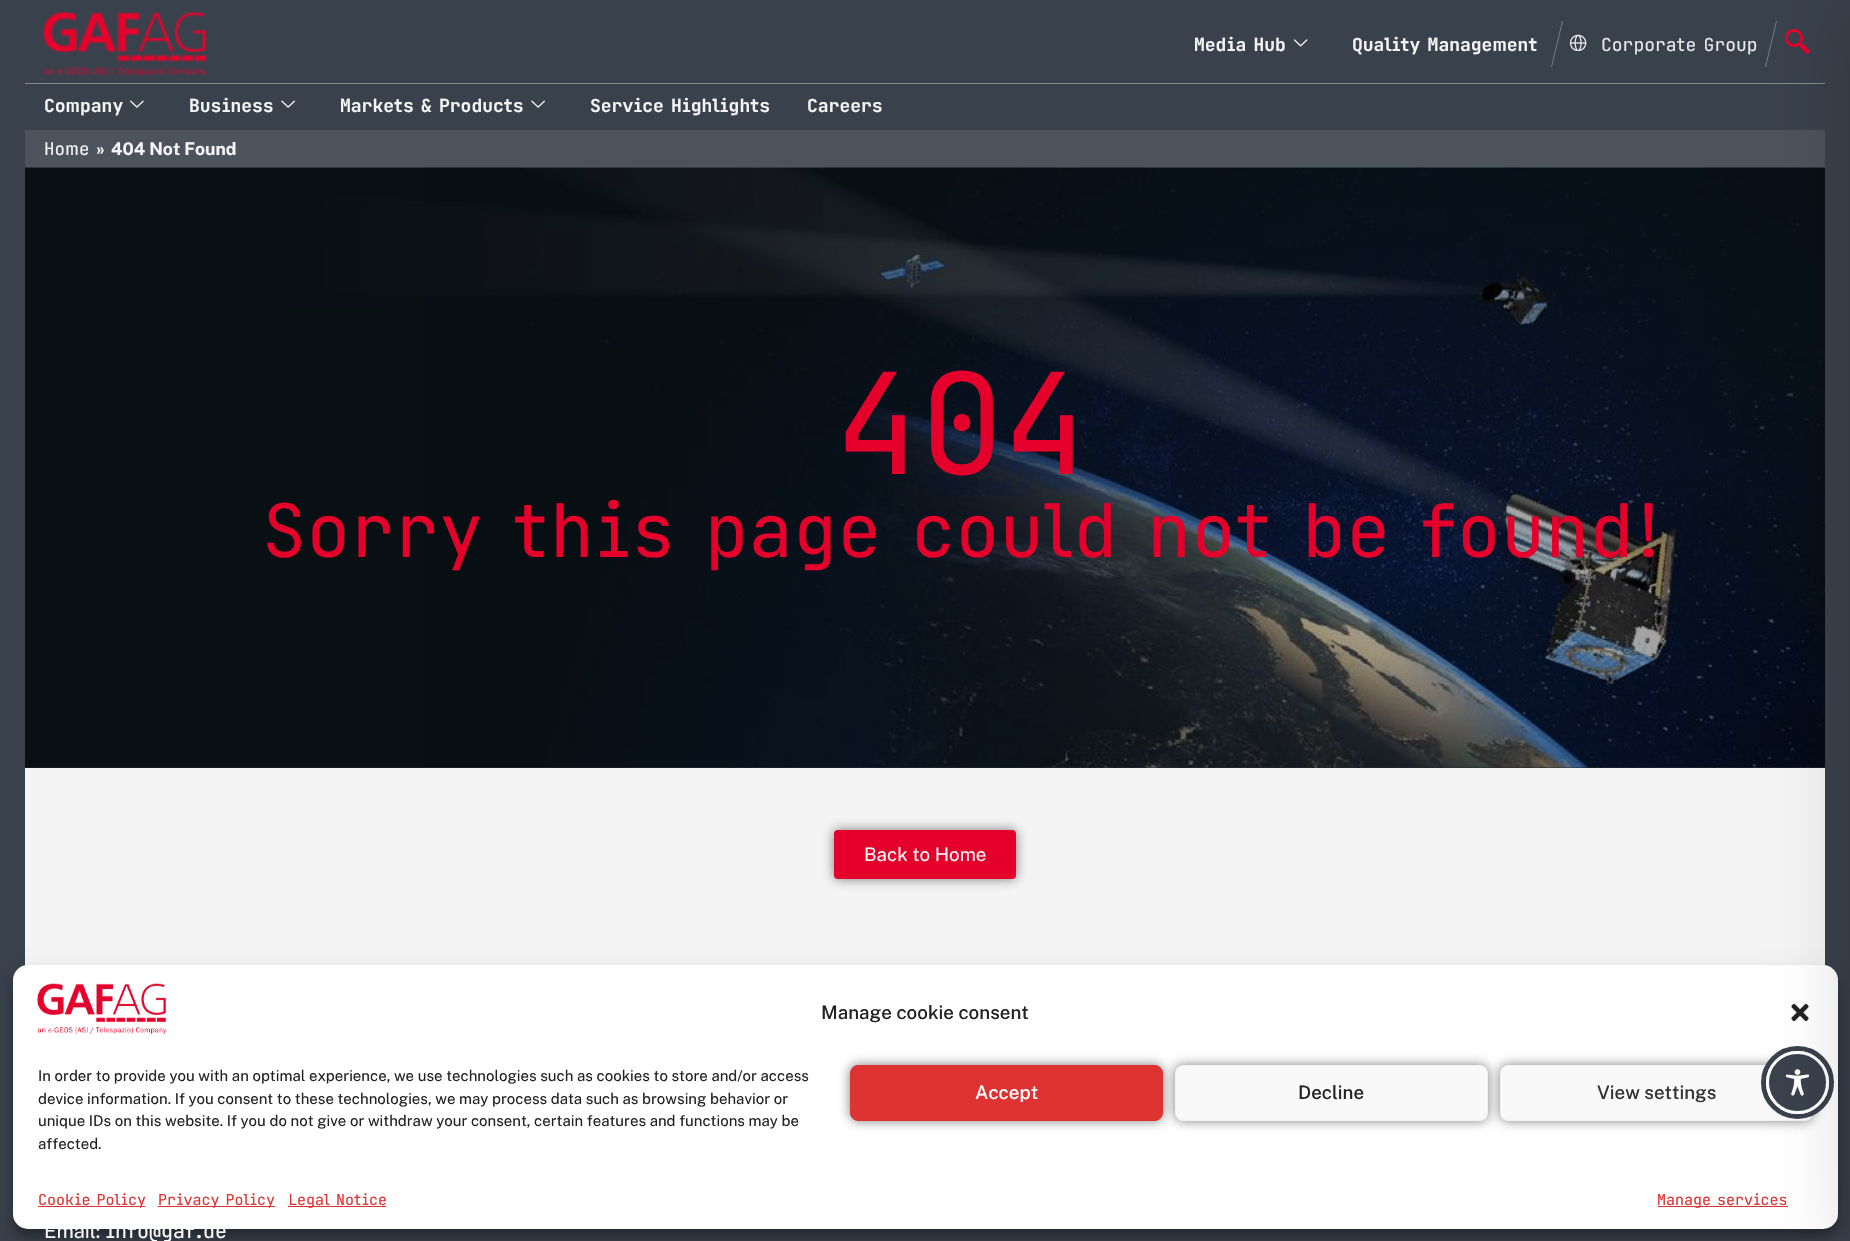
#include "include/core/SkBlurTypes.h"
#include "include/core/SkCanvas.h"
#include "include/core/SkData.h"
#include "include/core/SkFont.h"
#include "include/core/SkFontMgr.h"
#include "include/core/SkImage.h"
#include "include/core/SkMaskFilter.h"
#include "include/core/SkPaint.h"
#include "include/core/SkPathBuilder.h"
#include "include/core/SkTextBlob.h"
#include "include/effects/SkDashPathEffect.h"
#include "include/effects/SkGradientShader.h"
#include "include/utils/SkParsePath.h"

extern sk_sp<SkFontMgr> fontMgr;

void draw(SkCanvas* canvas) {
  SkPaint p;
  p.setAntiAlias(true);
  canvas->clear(SkColorSetRGB(57, 65, 76));
  p.setColor(SkColorSetRGB(38, 43, 50));
  canvas->drawRect(SkRect::MakeLTRB(25, 767, 1825, 768), p);
  canvas->drawImageRect(SkImages::DeferredFromEncodedData(SkData::MakeFromFileName("images/1.png")), SkRect::MakeLTRB(43, 12, 207, 75), SkSamplingOptions());
  canvas->drawImageRect(SkImages::DeferredFromEncodedData(SkData::MakeFromFileName("images/2.png")), SkRect::MakeLTRB(1293, 39, 1308, 47), SkSamplingOptions());
  p.setColor(SkColorSetRGB(116, 122, 130));
  canvas->drawPath(SkPathBuilder().moveTo(1562, 21).lineTo(1563, 21).lineTo(1552, 67).lineTo(1551, 67).close().detach(), p);
  canvas->drawPath(SkPathBuilder().moveTo(1776, 21).lineTo(1777, 21).lineTo(1766, 67).lineTo(1765, 67).close().detach(), p);
  canvas->drawImageRect(SkImages::DeferredFromEncodedData(SkData::MakeFromFileName("images/3.png")), SkRect::MakeLTRB(1569, 34, 1587, 51), SkSamplingOptions());
  canvas->drawImageRect(SkImages::DeferredFromEncodedData(SkData::MakeFromFileName("images/4.png")), SkRect::MakeLTRB(1785, 29, 1810, 54), SkSamplingOptions());
  p.setColor(SkColorSetRGB(137, 137, 137));
  canvas->drawRect(SkRect::MakeLTRB(25, 83, 1825, 84), p);
  canvas->drawImageRect(SkImages::DeferredFromEncodedData(SkData::MakeFromFileName("images/5.png")), SkRect::MakeLTRB(130, 100, 144, 108), SkSamplingOptions());
  canvas->drawImageRect(SkImages::DeferredFromEncodedData(SkData::MakeFromFileName("images/6.png")), SkRect::MakeLTRB(281, 100, 295, 108), SkSamplingOptions());
  canvas->drawImageRect(SkImages::DeferredFromEncodedData(SkData::MakeFromFileName("images/6.png")), SkRect::MakeLTRB(531, 100, 545, 108), SkSamplingOptions());
  p.setColor(SkColorSetRGB(76, 83, 93));
  canvas->drawRect(SkRect::MakeLTRB(25, 130, 1825, 168), p);
  canvas->drawImageRect(SkImages::DeferredFromEncodedData(SkData::MakeFromFileName("images/7.png")), SkRect::MakeLTRB(25, 167, 1825, 768), SkSamplingOptions());
  p.setColor(SkColorSetRGB(244, 244, 244));
  canvas->drawRect(SkRect::MakeLTRB(25, 768, 1825, 966), p);
  p.setColor(SkColorSetARGB(128, 0, 0, 0));
  p.setMaskFilter(SkMaskFilter::MakeBlur(kNormal_SkBlurStyle, 6));
  canvas->drawRoundRect(SkRect::MakeLTRB(834, 830, 1016, 879), 4, 4, p);
  p.setMaskFilter(nullptr);
  p.setColor(SkColorSetRGB(228, 0, 43));
  canvas->drawRoundRect(SkRect::MakeLTRB(834, 830, 1016, 879), 4, 4, p);
  p.setColor(SkColorSetARGB(59, 0, 0, 0));
  p.setMaskFilter(SkMaskFilter::MakeBlur(kNormal_SkBlurStyle, 4));
  canvas->drawRoundRect(SkRect::MakeLTRB(13, 973, 1838, 1236), 15, 15, p);
  p.setMaskFilter(nullptr);
  p.setColor(SkColorSetARGB(48, 0, 0, 0));
  p.setMaskFilter(SkMaskFilter::MakeBlur(kNormal_SkBlurStyle, 12.5f));
  canvas->drawRoundRect(SkRect::MakeLTRB(13, 978, 1838, 1241), 15, 15, p);
  p.setMaskFilter(nullptr);
  SkFont font1(fontMgr->matchFamilyStyle("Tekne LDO", SkFontStyle::Bold()), 18);
  font1.setSubpixel(true);
  p.setColor(SkColorSetRGB(244, 244, 244));
  canvas->drawString("Media Hub", 1194, 51, font1, p);
  canvas->drawString("Quality Management", 1352, 51, font1, p);
  SkFont font2(fontMgr->matchFamilyStyle("Tekne LDO", SkFontStyle::Normal()), 18);
  font2.setSubpixel(true);
  p.setColor(SkColorSetRGB(231, 232, 234));
  canvas->drawString("Corporate Group", 1601, 51, font2, p);
  p.setColor(SkColorSetRGB(244, 244, 244));
  canvas->drawString("Company", 44, 112, font1, p);
  canvas->drawString("Business", 189, 112, font1, p);
  canvas->drawString("Markets & Products", 340, 112, font1, p);
  canvas->drawString("Service Highlights", 590, 112, font1, p);
  canvas->drawString("Careers", 807, 112, font1, p);
  SkFont font3(fontMgr->matchFamilyStyle("Tekne LDO", SkFontStyle::Normal()), 17.5f);
  font3.setSubpixel(true);
  canvas->drawString("Home", 44, 155, font3, p);
  SkFont font4(fontMgr->matchFamilyStyle("Public Sans", SkFontStyle::Bold()), 17.5f);
  font4.setSubpixel(true);
  canvas->drawString("»", 96, 155, font4, p);
  canvas->drawString("404 Not Found", 111, 155, font4, p);
  SkFont font5(fontMgr->matchFamilyStyle("Tekne LDO", SkFontStyle::Normal()), 140);
  font5.setSubpixel(true);
  p.setColor(SkColorSetRGB(228, 0, 43));
  canvas->drawString("404", 836, 474, font5, p);
  SkFont font6(fontMgr->matchFamilyStyle("Tekne LDO", SkFontStyle::Normal()), 73.75f);
  font6.setSubpixel(true);
  canvas->drawString("Sorry this page could not be found!", 262, 557, font6, p);
  SkFont font7(fontMgr->matchFamilyStyle("Public Sans", SkFontStyle::Normal()), 18.75f);
  font7.setSubpixel(true);
  p.setColor(SkColorSetRGB(244, 244, 244));
  canvas->drawString("Back to Home", 864, 861, font7, p);
  SkFont font8(fontMgr->matchFamilyStyle("Public Sans", SkFontStyle::Normal()), 20);
  font8.setSubpixel(true);
  canvas->drawString("Email:", 44, 1238, font8, p);
  p.setColor(SK_ColorWHITE);
  canvas->drawRoundRect(SkRect::MakeLTRB(13, 965, 1838, 1229), 15, 15, p);
  p.setColor(SkColorSetARGB(128, 0, 0, 0));
  p.setMaskFilter(SkMaskFilter::MakeBlur(kNormal_SkBlurStyle, 6));
  canvas->drawRoundRect(SkRect::MakeLTRB(850, 1065, 1163, 1121), 8, 8, p);
  p.setMaskFilter(nullptr);
  p.setColor(SkColorSetRGB(221, 51, 51));
  canvas->drawRoundRect(SkRect::MakeLTRB(850.5f, 1065.5f, 1162.5f, 1120.5f), 7.5f, 7.5f, p);
  p.setStyle(SkPaint::kStroke_Style);
  p.setStrokeWidth(1);
  canvas->drawRoundRect(SkRect::MakeLTRB(850.5f, 1065.5f, 1162.5f, 1120.5f), 7.5f, 7.5f, p);
  p.setStyle(SkPaint::kFill_Style);
  p.setColor(SkColorSetARGB(128, 0, 0, 0));
  p.setMaskFilter(SkMaskFilter::MakeBlur(kNormal_SkBlurStyle, 6));
  canvas->drawRoundRect(SkRect::MakeLTRB(1175, 1065, 1488, 1121), 8, 8, p);
  p.setMaskFilter(nullptr);
  p.setColor(SkColorSetRGB(249, 249, 249));
  canvas->drawRoundRect(SkRect::MakeLTRB(1175.5f, 1065.5f, 1487.5f, 1120.5f), 7.5f, 7.5f, p);
  p.setStyle(SkPaint::kStroke_Style);
  p.setColor(SkColorSetRGB(242, 242, 242));
  canvas->drawRoundRect(SkRect::MakeLTRB(1175.5f, 1065.5f, 1487.5f, 1120.5f), 7.5f, 7.5f, p);
  p.setStyle(SkPaint::kFill_Style);
  p.setColor(SkColorSetARGB(128, 0, 0, 0));
  p.setMaskFilter(SkMaskFilter::MakeBlur(kNormal_SkBlurStyle, 6));
  canvas->drawRoundRect(SkRect::MakeLTRB(1500, 1065, 1813, 1121), 8, 8, p);
  p.setMaskFilter(nullptr);
  p.setColor(SkColorSetRGB(249, 249, 249));
  canvas->drawRoundRect(SkRect::MakeLTRB(1500.5f, 1065.5f, 1812.5f, 1120.5f), 7.5f, 7.5f, p);
  p.setStyle(SkPaint::kStroke_Style);
  p.setColor(SkColorSetRGB(242, 242, 242));
  canvas->drawRoundRect(SkRect::MakeLTRB(1500.5f, 1065.5f, 1812.5f, 1120.5f), 7.5f, 7.5f, p);
  p.setStrokeWidth(5);
  p.setColor(SkColorSetRGB(57, 65, 76));
  canvas->drawCircle(1797.5f, 1082.5f, 34, p);
  p.setStyle(SkPaint::kFill_Style);
  canvas->drawCircle(1797.5f, 1082.5f, 30, p);
  p.setStyle(SkPaint::kStroke_Style);
  p.setStrokeWidth(3);
  p.setColor(SK_ColorWHITE);
  canvas->drawCircle(1797.5f, 1082.5f, 30, p);
  canvas->drawImageRect(SkImages::DeferredFromEncodedData(SkData::MakeFromFileName("images/10.png")), SkRect::MakeLTRB(1785, 1069, 1810, 1096), SkSamplingOptions());
  canvas->drawImageRect(SkImages::DeferredFromEncodedData(SkData::MakeFromFileName("images/9.png")), SkRect::MakeLTRB(1791, 1003, 1809, 1021), SkSamplingOptions());
  p.setStyle(SkPaint::kFill_Style);
  p.setColor(SkColorSetRGB(221, 51, 51));
  canvas->drawRect(SkRect::MakeLTRB(1658, 1206, 1788, 1207), p);
  p.setColor(SkColorSetARGB(51, 0, 0, 0));
  p.setMaskFilter(SkMaskFilter::MakeBlur(kNormal_SkBlurStyle, 37.5f));
  canvas->drawRect(SkRect::MakeLTRB(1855, 13, 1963, 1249), p);
  p.setMaskFilter(nullptr);
  SkFont font9(fontMgr->matchFamilyStyle("Public Sans", SkFontStyle::Normal()), 15);
  font9.setSubpixel(true);
  p.setColor(SkColorSetRGB(34, 34, 34));
  canvas->drawString("affected.", 38, 1149, font9, p);
  canvas->drawString("unique IDs on this website. If you do not give or withdraw your consent, certain features and functions may be", 38, 1126, font9, p);
  canvas->drawString("device information. If you consent to these technologies, we may process data such as browsing behavior or", 38, 1104, font9, p);
  canvas->drawString("In order to provide you with an optimal experience, we use technologies such as cookies to store and/or access", 38, 1081, font9, p);
  p.setColor(SkColorSetRGB(221, 51, 51));
  canvas->drawRect(SkRect::MakeLTRB(288, 1206, 386, 1207), p);
  SkFont font10(fontMgr->matchFamilyStyle("Tekne LDO", SkFontStyle::Normal()), 15);
  font10.setSubpixel(true);
  canvas->drawString("Legal Notice", 288, 1205, font10, p);
  canvas->drawRect(SkRect::MakeLTRB(158, 1206, 275, 1207), p);
  canvas->drawString("Privacy Policy", 158, 1205, font10, p);
  canvas->drawRect(SkRect::MakeLTRB(38, 1206, 145, 1207), p);
  canvas->drawString("Cookie Policy", 38, 1205, font10, p);
  SkFont font11(fontMgr->matchFamilyStyle("Public Sans", SkFontStyle(500, SkFontStyle::kNormal_Width, SkFontStyle::kUpright_Slant)), 18.75f);
  font11.setSubpixel(true);
  p.setColor(SkColorSetRGB(51, 51, 51));
  canvas->drawString("View settings", 1597, 1099, font11, p);
  p.setColor(SkColorSetRGB(34, 34, 34));
  canvas->drawString("Decline", 1298, 1099, font11, p);
  p.setColor(SK_ColorWHITE);
  canvas->drawString("Accept", 975, 1099, font11, p);
  p.setColor(SkColorSetRGB(221, 51, 51));
  canvas->drawString("Manage services", 1657, 1205, font10, p);
  p.setColor(SkColorSetRGB(34, 34, 34));
  canvas->drawString("Manage cookie consent", 821, 1019, font11, p);
  canvas->drawImageRect(SkImages::DeferredFromEncodedData(SkData::MakeFromFileName("images/8.png")), SkRect::MakeLTRB(37, 983, 167, 1034), SkSamplingOptions());
  SkFont font12(fontMgr->matchFamilyStyle("Tekne LDO", SkFontStyle::Normal()), 20);
  font12.setSubpixel(true);
  p.setColor(SK_ColorWHITE);
  canvas->drawString("info@gaf.de", 105, 1238, font12, p);
}
